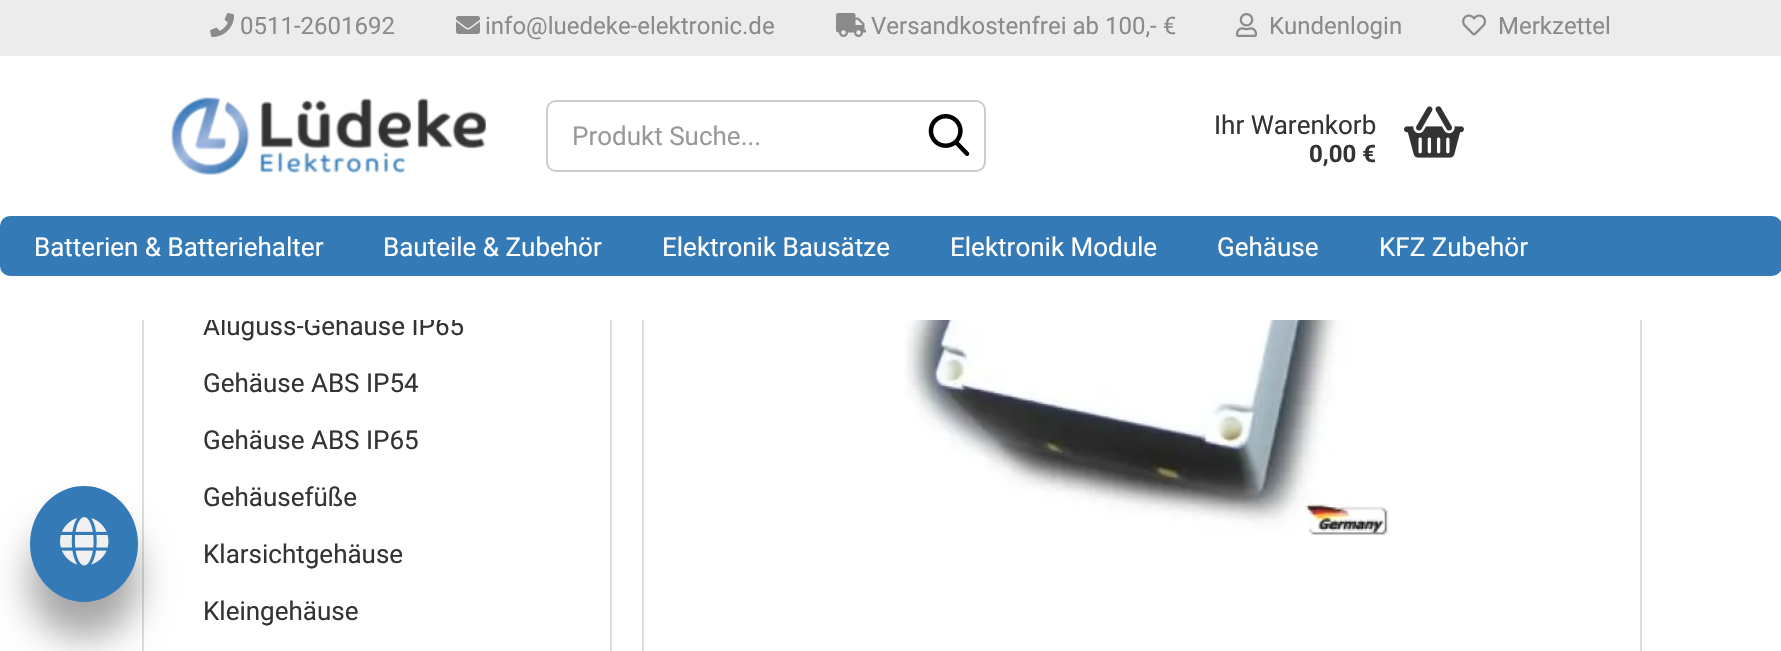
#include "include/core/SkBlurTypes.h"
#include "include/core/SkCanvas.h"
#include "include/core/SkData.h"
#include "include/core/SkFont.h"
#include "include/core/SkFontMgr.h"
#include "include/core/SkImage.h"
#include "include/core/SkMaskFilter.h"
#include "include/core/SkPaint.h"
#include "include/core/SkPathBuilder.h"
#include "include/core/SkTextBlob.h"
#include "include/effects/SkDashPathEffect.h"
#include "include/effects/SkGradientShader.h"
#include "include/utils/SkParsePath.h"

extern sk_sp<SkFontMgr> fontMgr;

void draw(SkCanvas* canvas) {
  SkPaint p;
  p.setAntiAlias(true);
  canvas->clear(SK_ColorWHITE);
  p.setColor(SkColorSetRGB(221, 221, 221));
  canvas->drawPath(SkPathBuilder(SkPathFillType::kEvenOdd).moveTo(152, -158).lineTo(602, -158).cubicTo(608, -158, 612, -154, 612, -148).lineTo(612, 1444).cubicTo(612, 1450, 608, 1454, 602, 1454).lineTo(152, 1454).cubicTo(146, 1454, 142, 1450, 142, 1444).lineTo(142, -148).cubicTo(142, -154, 146, -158, 152, -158).close().moveTo(152, -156).lineTo(602, -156).cubicTo(606, -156, 610, -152, 610, -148).lineTo(610, 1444).cubicTo(610, 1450, 606, 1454, 602, 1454).lineTo(152, 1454).cubicTo(148, 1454, 144, 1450, 144, 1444).lineTo(144, -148).cubicTo(144, -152, 148, -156, 152, -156).close().detach(), p);
  p.setStyle(SkPaint::kStroke_Style);
  p.setStrokeWidth(2);
  canvas->drawRect(SkRect::MakeLTRB(643, -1, 1641, 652), p);
  p.setStyle(SkPaint::kFill_Style);
  p.setColor(SkColorSetRGB(236, 236, 236));
  canvas->drawRect(SkRect::MakeLTRB(0, 0, 1781, 56), p);
  canvas->drawImageRect(SkImages::DeferredFromEncodedData(SkData::MakeFromFileName("images/1.png")), SkRect::MakeLTRB(210, 13, 234, 37), SkSamplingOptions());
  canvas->drawImageRect(SkImages::DeferredFromEncodedData(SkData::MakeFromFileName("images/2.png")), SkRect::MakeLTRB(456, 16, 480, 34), SkSamplingOptions());
  canvas->drawImageRect(SkImages::DeferredFromEncodedData(SkData::MakeFromFileName("images/3.png")), SkRect::MakeLTRB(836, 13, 866, 37), SkSamplingOptions());
  canvas->drawImageRect(SkImages::DeferredFromEncodedData(SkData::MakeFromFileName("images/4.png")), SkRect::MakeLTRB(1236, 13, 1257, 37), SkSamplingOptions());
  canvas->drawImageRect(SkImages::DeferredFromEncodedData(SkData::MakeFromFileName("images/5.png")), SkRect::MakeLTRB(1462, 14, 1486, 36), SkSamplingOptions());
  p.setColor(SkColorSetARGB(89, 0, 0, 0));
  p.setMaskFilter(SkMaskFilter::MakeBlur(kNormal_SkBlurStyle, 18));
  canvas->drawRoundRect(SkRect::MakeLTRB(30, 522, 138, 638), 54, 54, p);
  p.setMaskFilter(nullptr);
  p.setColor(SkColorSetRGB(51, 122, 183));
  canvas->drawOval(SkRect::MakeLTRB(30, 486, 138, 602), p);
  canvas->drawImageRect(SkImages::DeferredFromEncodedData(SkData::MakeFromFileName("images/9.png")), SkRect::MakeLTRB(60, 517, 109, 566), SkSamplingOptions());
  canvas->drawImageRect(SkImages::DeferredFromEncodedData(SkData::MakeFromFileName("images/10.png")), SkRect::MakeLTRB(905, 320, 1389, 536), SkSamplingOptions());
  SkFont font1(fontMgr->matchFamilyStyle("Roboto", SkFontStyle::Normal()), 24);
  font1.setSubpixel(true);
  p.setColor(SkColorSetRGB(139, 139, 139));
  canvas->drawString("0511-2601692", 240, 34, font1, p);
  canvas->drawString("info@luedeke-elektronic.de", 485, 34, font1, p);
  canvas->drawString("Versandkostenfrei ab 100,- €", 871, 34, font1, p);
  canvas->drawString("Kundenlogin", 1269, 34, font1, p);
  canvas->drawString("Merkzettel", 1498, 34, font1, p);
  SkFont font2(fontMgr->matchFamilyStyle("Roboto", SkFontStyle::Normal()), 26);
  font2.setSubpixel(true);
  p.setColor(SkColorSetRGB(51, 51, 51));
  canvas->drawString("Aluguss-Gehäuse IP65", 203, 335, font2, p);
  p.setColor(SK_ColorWHITE);
  canvas->drawRect(SkRect::MakeLTRB(142, 56, 1642, 320), p);
  p.setStyle(SkPaint::kStroke_Style);
  p.setColor(SkColorSetRGB(204, 204, 204));
  canvas->drawRoundRect(SkRect::MakeLTRB(547, 101, 985, 171), 9, 9, p);
  canvas->drawImageRect(SkImages::DeferredFromEncodedData(SkData::MakeFromFileName("images/7.png")), SkRect::MakeLTRB(928, 114, 970, 156), SkSamplingOptions());
  p.setStyle(SkPaint::kFill_Style);
  p.setColor(SkColorSetRGB(153, 153, 153));
  canvas->drawString("Produkt Suche...", 572, 145, font2, p);
  p.setColor(SkColorSetRGB(51, 122, 183));
  canvas->drawRoundRect(SkRect::MakeLTRB(0, 216, 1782, 276), 10, 10, p);
  p.setColor(SK_ColorWHITE);
  canvas->drawString("KFZ Zubehör", 1379, 256, font2, p);
  canvas->drawString("Gehäuse", 1217, 256, font2, p);
  canvas->drawString("Elektronik Module", 950, 256, font2, p);
  canvas->drawString("Elektronik Bausätze", 662, 256, font2, p);
  canvas->drawString("Bauteile & Zubehör", 383, 256, font2, p);
  canvas->drawString("Batterien & Batteriehalter", 34, 256, font2, p);
  canvas->drawImageRect(SkImages::DeferredFromEncodedData(SkData::MakeFromFileName("images/8.png")), SkRect::MakeLTRB(1404, 106, 1464, 158), SkSamplingOptions());
  p.setColor(SkColorSetRGB(51, 51, 51));
  canvas->drawString("Ihr Warenkorb", 1214, 134, font2, p);
  SkFont font3(fontMgr->matchFamilyStyle("Roboto", SkFontStyle::Bold()), 24);
  font3.setSubpixel(true);
  canvas->drawString("0,00 €", 1309, 162, font3, p);
  canvas->drawImageRect(SkImages::DeferredFromEncodedData(SkData::MakeFromFileName("images/6.png")), SkRect::MakeLTRB(171, 97, 486, 175), SkSamplingOptions());
  canvas->drawString("Gehäuse ABS IP54", 203, 392, font2, p);
  canvas->drawString("Gehäuse ABS IP65", 203, 449, font2, p);
  canvas->drawString("Gehäusefüße", 203, 506, font2, p);
  canvas->drawString("Klarsichtgehäuse", 203, 563, font2, p);
  canvas->drawString("Kleingehäuse", 203, 620, font2, p);
}
